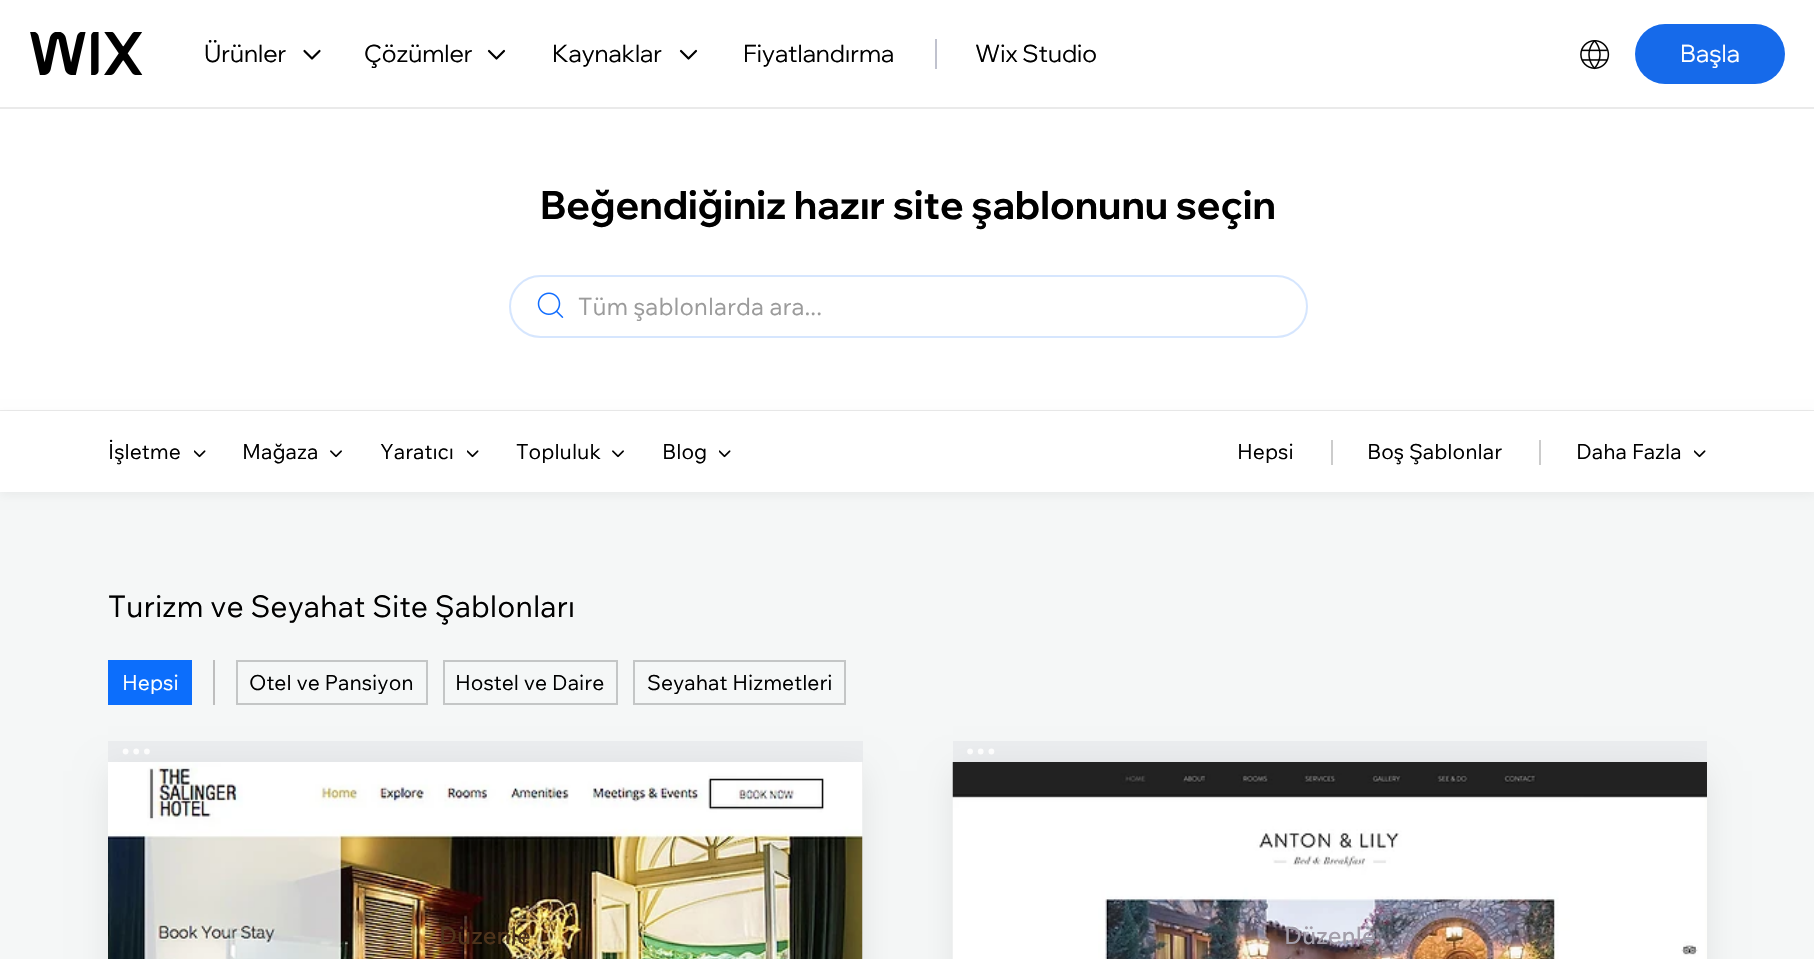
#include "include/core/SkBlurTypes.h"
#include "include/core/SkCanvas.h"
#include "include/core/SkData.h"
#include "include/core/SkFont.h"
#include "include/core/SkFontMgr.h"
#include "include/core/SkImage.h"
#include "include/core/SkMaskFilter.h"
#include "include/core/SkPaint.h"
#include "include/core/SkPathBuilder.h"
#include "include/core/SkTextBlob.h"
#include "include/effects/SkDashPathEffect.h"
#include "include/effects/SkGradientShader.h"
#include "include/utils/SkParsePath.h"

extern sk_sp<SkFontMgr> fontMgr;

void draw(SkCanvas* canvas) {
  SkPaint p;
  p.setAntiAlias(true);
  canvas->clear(SK_ColorWHITE);
  p.setColor(SkColorSetRGB(234, 234, 234));
  canvas->drawRect(SkRect::MakeLTRB(0, 107, 1814, 109), p);
  canvas->drawImageRect(SkImages::DeferredFromEncodedData(SkData::MakeFromFileName("images/1.png")), SkRect::MakeLTRB(30, 32, 143, 75), SkSamplingOptions());
  p.setStyle(SkPaint::kStroke_Style);
  p.setStrokeWidth(2.2f);
  p.setStrokeCap(SkPaint::kRound_Cap);
  p.setStrokeJoin(SkPaint::kRound_Join);
  p.setColor(SK_ColorBLACK);
  canvas->drawPath(SkPathBuilder().moveTo(304.5f, 51).lineTo(312, 58.5f).lineTo(319.5f, 51).detach(), p);
  canvas->drawPath(SkPathBuilder().moveTo(489, 51).lineTo(496.5f, 58.5f).lineTo(504, 51).detach(), p);
  canvas->drawPath(SkPathBuilder().moveTo(681, 51).lineTo(688.5f, 58.5f).lineTo(696, 51).detach(), p);
  p.setStyle(SkPaint::kFill_Style);
  p.setColor(SkColorSetRGB(192, 194, 206));
  canvas->drawRect(SkRect::MakeLTRB(935, 39, 937, 69), p);
  canvas->drawImageRect(SkImages::DeferredFromEncodedData(SkData::MakeFromFileName("images/2.png")), SkRect::MakeLTRB(1580, 40, 1610, 70), SkSamplingOptions());
  p.setColor(SkColorSetRGB(22, 106, 234));
  canvas->drawRoundRect(SkRect::MakeLTRB(1635, 24, 1785, 84), 30, 30, p);
  p.setColor(SkColorSetRGB(235, 235, 235));
  canvas->drawRect(SkRect::MakeLTRB(0, 410, 1814, 411), p);
  p.setStyle(SkPaint::kStroke_Style);
  p.setStrokeWidth(2);
  p.setStrokeCap(SkPaint::kButt_Cap);
  p.setStrokeJoin(SkPaint::kMiter_Join);
  p.setColor(SkColorSetRGB(214, 230, 254));
  canvas->drawRoundRect(SkRect::MakeLTRB(510, 276, 1307, 337), 30.5f, 30.5f, p);
  canvas->drawImageRect(SkImages::DeferredFromEncodedData(SkData::MakeFromFileName("images/3.png")), SkRect::MakeLTRB(537, 292, 564, 318), SkSamplingOptions());
  p.setStyle(SkPaint::kFill_Style);
  p.setColor(SkColorSetRGB(245, 247, 247));
  canvas->drawRect(SkRect::MakeLTRB(0, 492, 1814, 959), p);
  p.setColor(SkColorSetARGB(13, 0, 0, 0));
  p.setMaskFilter(SkMaskFilter::MakeBlur(kNormal_SkBlurStyle, 5));
  canvas->drawRect(SkRect::MakeLTRB(0, 414, 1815, 495), p);
  p.setMaskFilter(nullptr);
  p.setColor(SK_ColorWHITE);
  canvas->drawRect(SkRect::MakeLTRB(0, 411, 1814, 492), p);
  canvas->drawImageRect(SkImages::DeferredFromEncodedData(SkData::MakeFromFileName("images/4.png")), SkRect::MakeLTRB(194, 450, 206, 458), SkSamplingOptions());
  canvas->drawImageRect(SkImages::DeferredFromEncodedData(SkData::MakeFromFileName("images/5.png")), SkRect::MakeLTRB(330, 450, 342, 458), SkSamplingOptions());
  canvas->drawImageRect(SkImages::DeferredFromEncodedData(SkData::MakeFromFileName("images/4.png")), SkRect::MakeLTRB(467, 450, 479, 458), SkSamplingOptions());
  canvas->drawImageRect(SkImages::DeferredFromEncodedData(SkData::MakeFromFileName("images/5.png")), SkRect::MakeLTRB(612, 450, 624, 458), SkSamplingOptions());
  canvas->drawImageRect(SkImages::DeferredFromEncodedData(SkData::MakeFromFileName("images/4.png")), SkRect::MakeLTRB(719, 450, 731, 458), SkSamplingOptions());
  p.setColor(SkColorSetRGB(204, 204, 204));
  canvas->drawRect(SkRect::MakeLTRB(1331, 440, 1333, 465), p);
  canvas->drawRect(SkRect::MakeLTRB(1539, 440, 1541, 465), p);
  canvas->drawImageRect(SkImages::DeferredFromEncodedData(SkData::MakeFromFileName("images/4.png")), SkRect::MakeLTRB(1694, 450, 1706, 458), SkSamplingOptions());
  p.setColor(SkColorSetRGB(190, 190, 190));
  canvas->drawRect(SkRect::MakeLTRB(213, 660, 215, 705), p);
  p.setColor(SkColorSetRGB(12, 110, 252));
  canvas->drawRect(SkRect::MakeLTRB(108, 660, 192, 705), p);
  p.setStyle(SkPaint::kStroke_Style);
  p.setColor(SkColorSetRGB(196, 198, 198));
  canvas->drawRect(SkRect::MakeLTRB(237, 661, 427, 704), p);
  canvas->drawRect(SkRect::MakeLTRB(444, 661, 617, 704), p);
  canvas->drawRect(SkRect::MakeLTRB(634, 661, 845, 704), p);
  p.setStyle(SkPaint::kFill_Style);
  p.setColor(SkColorSetRGB(235, 237, 239));
  canvas->drawRect(SkRect::MakeLTRB(108, 741, 863, 762), p);
  p.setColor(SK_ColorWHITE);
  canvas->drawCircle(125.6f, 751.5f, 2.9f, p);
  canvas->drawCircle(136.2f, 751.5f, 2.9f, p);
  canvas->drawCircle(146.9f, 751.5f, 2.9f, p);
  p.setColor(SkColorSetARGB(20, 0, 0, 0));
  p.setMaskFilter(SkMaskFilter::MakeBlur(kNormal_SkBlurStyle, 15));
  canvas->drawRect(SkRect::MakeLTRB(108, 771, 863, 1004), p);
  p.setMaskFilter(nullptr);
  p.setColor(SkColorSetRGB(236, 236, 236));
  canvas->drawRect(SkRect::MakeLTRB(862, 762, 863, 785), p);
  canvas->drawImageRect(SkImages::DeferredFromEncodedData(SkData::MakeFromFileName("images/6.png")), SkRect::MakeLTRB(108, 762, 863, 959), SkSamplingOptions());
  p.setColor(SkColorSetRGB(235, 237, 239));
  canvas->drawRect(SkRect::MakeLTRB(953, 741, 1707, 762), p);
  p.setColor(SK_ColorWHITE);
  canvas->drawCircle(970.1f, 751.5f, 2.9f, p);
  canvas->drawCircle(980.7f, 751.5f, 2.9f, p);
  canvas->drawCircle(991.4f, 751.5f, 2.9f, p);
  p.setColor(SkColorSetARGB(20, 0, 0, 0));
  p.setMaskFilter(SkMaskFilter::MakeBlur(kNormal_SkBlurStyle, 15));
  canvas->drawRect(SkRect::MakeLTRB(953, 771, 1707, 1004), p);
  p.setMaskFilter(nullptr);
  canvas->drawImageRect(SkImages::DeferredFromEncodedData(SkData::MakeFromFileName("images/7.png")), SkRect::MakeLTRB(952, 762, 1707, 959), SkSamplingOptions());
  SkFont font1(fontMgr->matchFamilyStyle("Wix Madefor Display", SkFontStyle::Normal()), 24);
  font1.setSubpixel(true);
  p.setColor(SK_ColorBLACK);
  canvas->drawString("Ürünler", 204, 62, font1, p);
  canvas->drawString("Çözümler", 364, 62, font1, p);
  canvas->drawString("Kaynaklar", 552, 62, font1, p);
  canvas->drawString("Fiyatlandırma", 743, 62, font1, p);
  canvas->drawString("Wix Studio", 975, 62, font1, p);
  p.setColor(SK_ColorWHITE);
  canvas->drawString("Başla", 1680, 62, font1, p);
  SkFont font2(fontMgr->matchFamilyStyle("Wix Madefor Display", SkFontStyle::Bold()), 39);
  font2.setSubpixel(true);
  p.setColor(SK_ColorBLACK);
  canvas->drawString("Beğendiğiniz hazır site şablonunu seçin", 540, 219, font2, p);
  SkFont font3(fontMgr->matchFamilyStyle("Wix Madefor Text", SkFontStyle::Normal()), 24);
  font3.setSubpixel(true);
  p.setColor(SkColorSetRGB(155, 155, 155));
  canvas->drawString("Tüm şablonlarda ara...", 578, 315, font3, p);
  SkFont font4(fontMgr->matchFamilyStyle("Wix Madefor Text", SkFontStyle::Normal()), 21);
  font4.setSubpixel(true);
  p.setColor(SK_ColorBLACK);
  canvas->drawString("İşletme", 108, 459, font4, p);
  canvas->drawString("Mağaza", 242, 459, font4, p);
  canvas->drawString("Yaratıcı", 380, 459, font4, p);
  canvas->drawString("Topluluk", 516, 459, font4, p);
  canvas->drawString("Blog", 662, 459, font4, p);
  canvas->drawString("Hepsi", 1237, 459, font4, p);
  canvas->drawString("Boş Şablonlar", 1367, 459, font4, p);
  canvas->drawString("Daha Fazla", 1576, 459, font4, p);
  SkFont font5(fontMgr->matchFamilyStyle("Wix Madefor Text", SkFontStyle::Normal()), 30);
  font5.setSubpixel(true);
  canvas->drawString("Turizm ve Seyahat Site Şablonları", 108, 617, font5, p);
  p.setColor(SK_ColorWHITE);
  canvas->drawString("Hepsi", 122, 690, font4, p);
  p.setColor(SK_ColorBLACK);
  canvas->drawString("Otel ve Pansiyon", 249, 690, font4, p);
  canvas->drawString("Hostel ve Daire", 455, 690, font4, p);
  canvas->drawString("Seyahat Hizmetleri", 647, 690, font4, p);
  SkFont font6(fontMgr->matchFamilyStyle("Wix Madefor Text", SkFontStyle(500, SkFontStyle::kNormal_Width, SkFontStyle::kUpright_Slant)), 24);
  font6.setSubpixel(true);
  p.setColor(SkColorSetRGB(79, 52, 28));
  canvas->drawString("Düzenle", 439, 944, font6, p);
  p.setColor(SkColorSetRGB(162, 157, 169));
  canvas->drawString("Düzenle", 1284, 944, font6, p);
}
